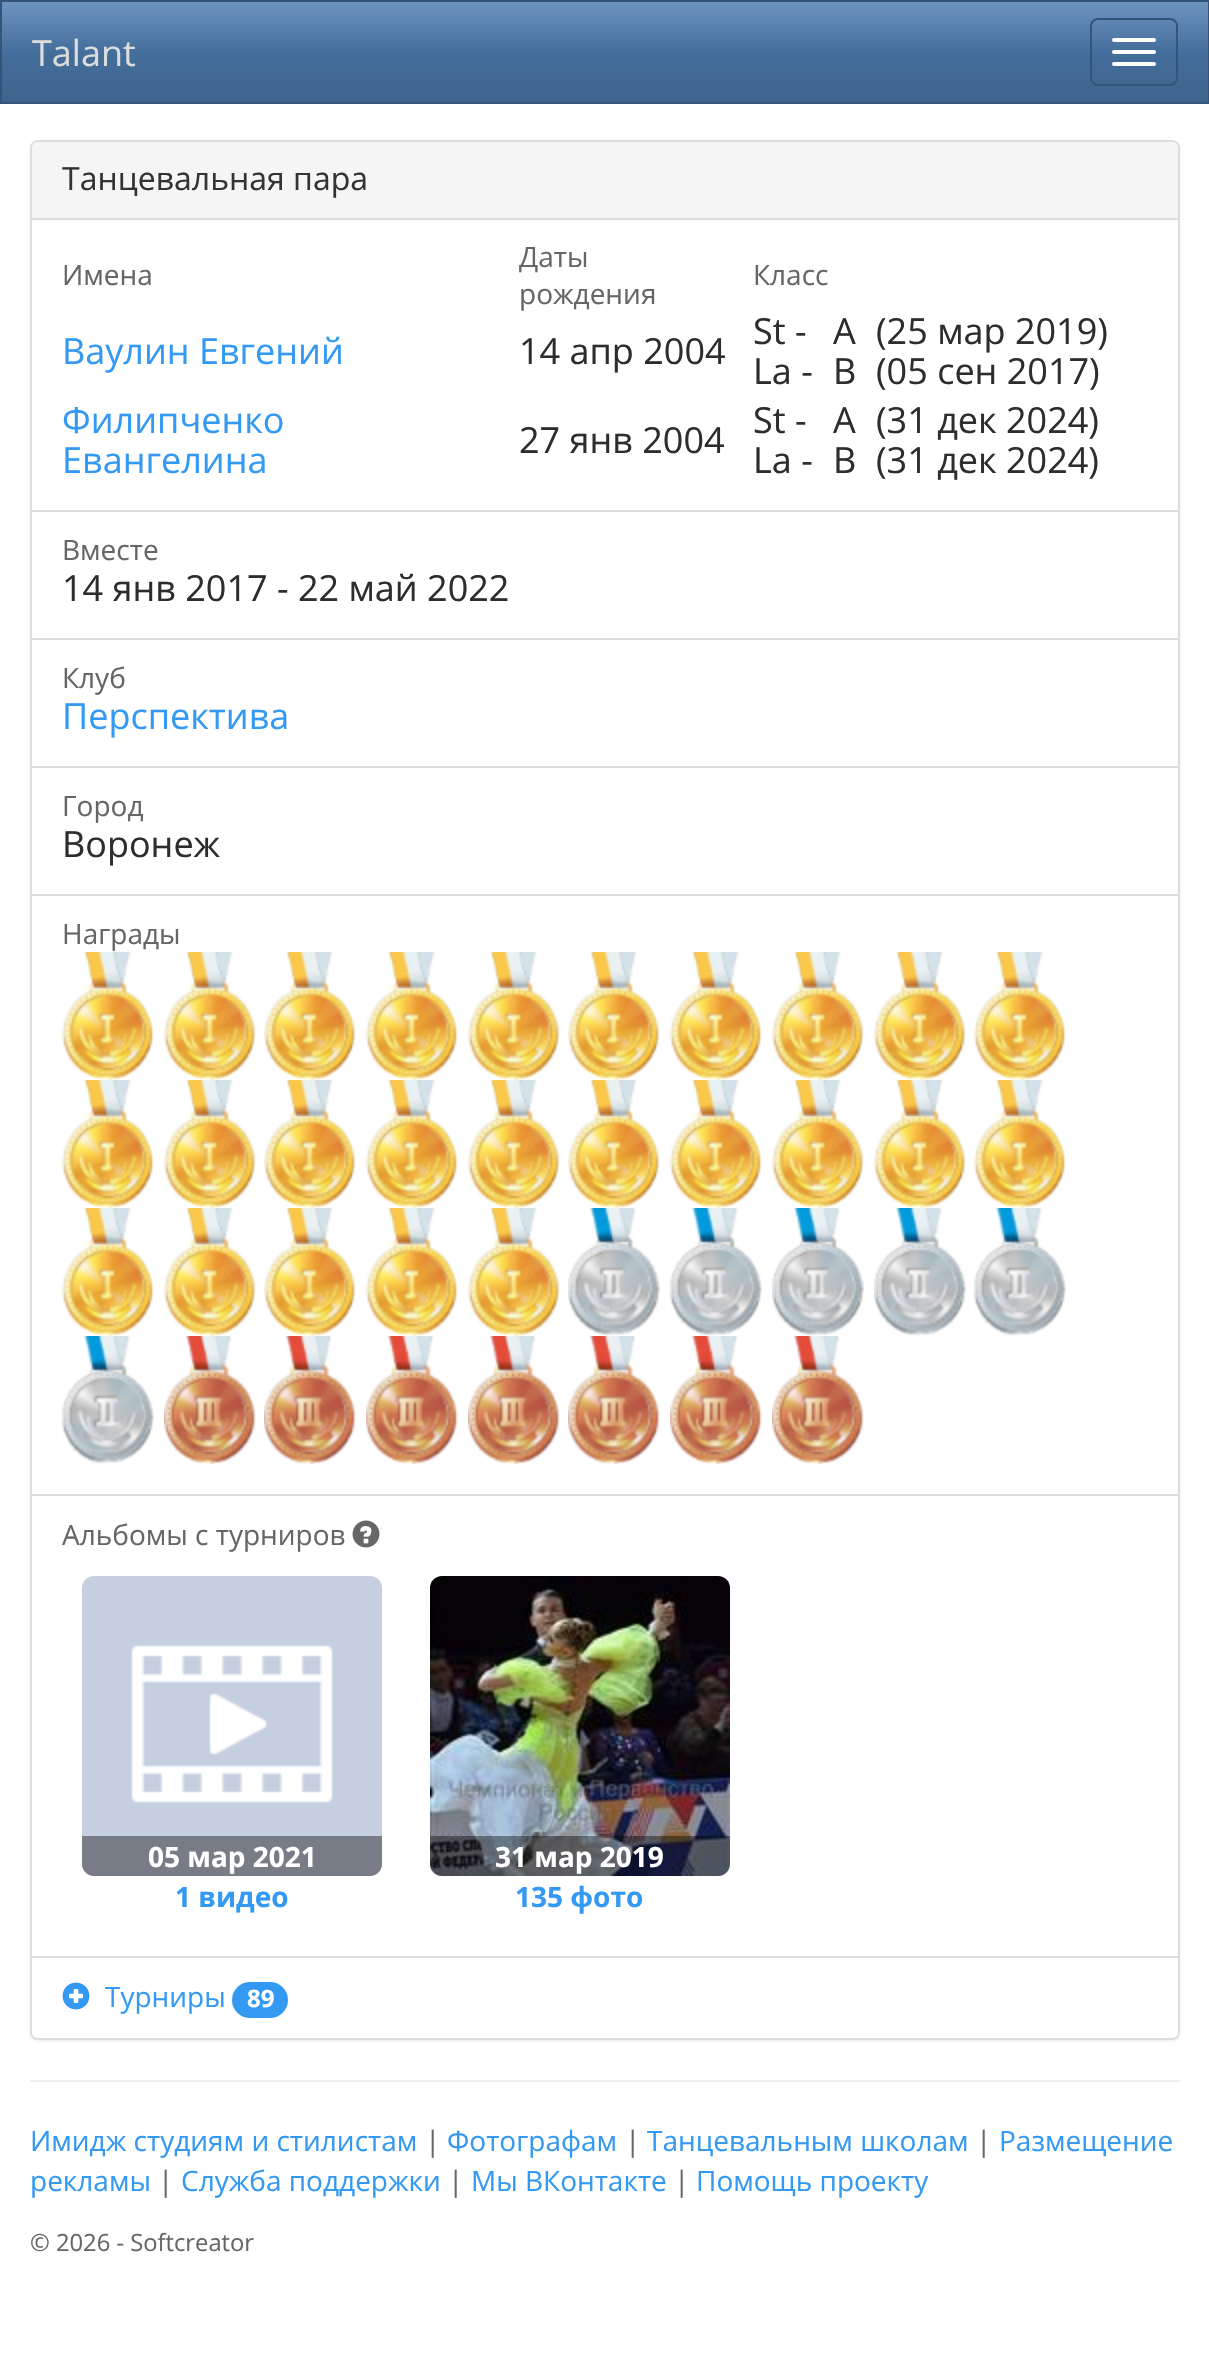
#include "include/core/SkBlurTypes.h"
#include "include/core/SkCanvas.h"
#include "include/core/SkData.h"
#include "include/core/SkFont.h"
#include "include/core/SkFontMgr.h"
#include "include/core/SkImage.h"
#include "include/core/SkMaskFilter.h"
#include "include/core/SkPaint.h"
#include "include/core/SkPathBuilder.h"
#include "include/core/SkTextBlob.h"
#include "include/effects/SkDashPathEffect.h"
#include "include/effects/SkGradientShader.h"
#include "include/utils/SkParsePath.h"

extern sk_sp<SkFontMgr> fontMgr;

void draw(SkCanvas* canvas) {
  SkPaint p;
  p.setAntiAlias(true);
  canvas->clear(SK_ColorWHITE);
  {
    const SkColor colors[] = {SkColorSetRGB(109, 148, 191), SkColorSetRGB(68, 110, 155), SkColorSetRGB(62, 100, 141)};
    const float stops[] = {0, 0.5f, 1};
    const SkPoint ends[] = {{605, 2}, {605, 102}};
    p.setShader(SkGradientShader::MakeLinear(ends, colors, stops, 3, SkTileMode::kClamp));
    p.setAlpha(255);
  }
  canvas->drawRect(SkRect::MakeLTRB(2, 2, 1208, 102), p);
  p.setStyle(SkPaint::kStroke_Style);
  p.setStrokeWidth(2);
  p.setShader(nullptr);
  p.setColor(SkColorSetRGB(52, 85, 120));
  canvas->drawRect(SkRect::MakeLTRB(1, 1, 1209, 103), p);
  canvas->drawRoundRect(SkRect::MakeLTRB(1091, 19, 1177, 85), 7, 7, p);
  p.setStyle(SkPaint::kFill_Style);
  p.setColor(SK_ColorWHITE);
  canvas->drawRoundRect(SkRect::MakeLTRB(1112, 38, 1156, 42), 2, 2, p);
  canvas->drawRoundRect(SkRect::MakeLTRB(1112, 50, 1156, 54), 2, 2, p);
  canvas->drawRoundRect(SkRect::MakeLTRB(1112, 62, 1156, 66), 2, 2, p);
  p.setColor(SkColorSetARGB(13, 0, 0, 0));
  p.setMaskFilter(SkMaskFilter::MakeBlur(kNormal_SkBlurStyle, 1));
  canvas->drawRoundRect(SkRect::MakeLTRB(30, 142, 1180, 2042), 8, 8, p);
  p.setMaskFilter(nullptr);
  p.setColor(SK_ColorWHITE);
  canvas->drawRoundRect(SkRect::MakeLTRB(31, 141, 1179, 2039), 7, 7, p);
  p.setStyle(SkPaint::kStroke_Style);
  p.setColor(SkColorSetRGB(221, 221, 221));
  canvas->drawRoundRect(SkRect::MakeLTRB(31, 141, 1179, 2039), 7, 7, p);
  p.setStyle(SkPaint::kFill_Style);
  p.setColor(SkColorSetRGB(245, 245, 245));
  canvas->drawPath(SkPathBuilder().moveTo(38, 142).lineTo(1172, 142).cubicTo(1175.5f, 142, 1178, 144.5f, 1178, 148).lineTo(1178, 220).lineTo(32, 220).lineTo(32, 148).cubicTo(32, 144.5f, 34.5f, 142, 38, 142).close().detach(), p);
  p.setColor(SkColorSetRGB(221, 221, 221));
  canvas->drawRect(SkRect::MakeLTRB(32, 218, 1178, 220), p);
  canvas->drawRect(SkRect::MakeLTRB(32, 510, 1178, 512), p);
  canvas->drawRect(SkRect::MakeLTRB(32, 638, 1178, 640), p);
  canvas->drawRect(SkRect::MakeLTRB(32, 766, 1178, 768), p);
  canvas->drawRect(SkRect::MakeLTRB(32, 894, 1178, 896), p);
  canvas->drawRect(SkRect::MakeLTRB(32, 1494, 1178, 1496), p);
  canvas->drawImageRect(SkImages::DeferredFromEncodedData(SkData::MakeFromFileName("images/1.png")), SkRect::MakeLTRB(62, 952, 154, 1080), SkSamplingOptions());
  canvas->drawImageRect(SkImages::DeferredFromEncodedData(SkData::MakeFromFileName("images/1.png")), SkRect::MakeLTRB(164, 952, 256, 1080), SkSamplingOptions());
  canvas->drawImageRect(SkImages::DeferredFromEncodedData(SkData::MakeFromFileName("images/1.png")), SkRect::MakeLTRB(264, 952, 356, 1080), SkSamplingOptions());
  canvas->drawImageRect(SkImages::DeferredFromEncodedData(SkData::MakeFromFileName("images/1.png")), SkRect::MakeLTRB(366, 952, 458, 1080), SkSamplingOptions());
  canvas->drawImageRect(SkImages::DeferredFromEncodedData(SkData::MakeFromFileName("images/1.png")), SkRect::MakeLTRB(468, 952, 560, 1080), SkSamplingOptions());
  canvas->drawImageRect(SkImages::DeferredFromEncodedData(SkData::MakeFromFileName("images/1.png")), SkRect::MakeLTRB(568, 952, 660, 1080), SkSamplingOptions());
  canvas->drawImageRect(SkImages::DeferredFromEncodedData(SkData::MakeFromFileName("images/1.png")), SkRect::MakeLTRB(670, 952, 762, 1080), SkSamplingOptions());
  canvas->drawImageRect(SkImages::DeferredFromEncodedData(SkData::MakeFromFileName("images/1.png")), SkRect::MakeLTRB(772, 952, 864, 1080), SkSamplingOptions());
  canvas->drawImageRect(SkImages::DeferredFromEncodedData(SkData::MakeFromFileName("images/1.png")), SkRect::MakeLTRB(874, 952, 966, 1080), SkSamplingOptions());
  canvas->drawImageRect(SkImages::DeferredFromEncodedData(SkData::MakeFromFileName("images/1.png")), SkRect::MakeLTRB(974, 952, 1066, 1080), SkSamplingOptions());
  canvas->drawImageRect(SkImages::DeferredFromEncodedData(SkData::MakeFromFileName("images/1.png")), SkRect::MakeLTRB(62, 1080, 154, 1208), SkSamplingOptions());
  canvas->drawImageRect(SkImages::DeferredFromEncodedData(SkData::MakeFromFileName("images/1.png")), SkRect::MakeLTRB(164, 1080, 256, 1208), SkSamplingOptions());
  canvas->drawImageRect(SkImages::DeferredFromEncodedData(SkData::MakeFromFileName("images/1.png")), SkRect::MakeLTRB(264, 1080, 356, 1208), SkSamplingOptions());
  canvas->drawImageRect(SkImages::DeferredFromEncodedData(SkData::MakeFromFileName("images/1.png")), SkRect::MakeLTRB(366, 1080, 458, 1208), SkSamplingOptions());
  canvas->drawImageRect(SkImages::DeferredFromEncodedData(SkData::MakeFromFileName("images/1.png")), SkRect::MakeLTRB(468, 1080, 560, 1208), SkSamplingOptions());
  canvas->drawImageRect(SkImages::DeferredFromEncodedData(SkData::MakeFromFileName("images/1.png")), SkRect::MakeLTRB(568, 1080, 660, 1208), SkSamplingOptions());
  canvas->drawImageRect(SkImages::DeferredFromEncodedData(SkData::MakeFromFileName("images/1.png")), SkRect::MakeLTRB(670, 1080, 762, 1208), SkSamplingOptions());
  canvas->drawImageRect(SkImages::DeferredFromEncodedData(SkData::MakeFromFileName("images/1.png")), SkRect::MakeLTRB(772, 1080, 864, 1208), SkSamplingOptions());
  canvas->drawImageRect(SkImages::DeferredFromEncodedData(SkData::MakeFromFileName("images/1.png")), SkRect::MakeLTRB(874, 1080, 966, 1208), SkSamplingOptions());
  canvas->drawImageRect(SkImages::DeferredFromEncodedData(SkData::MakeFromFileName("images/1.png")), SkRect::MakeLTRB(974, 1080, 1066, 1208), SkSamplingOptions());
  canvas->drawImageRect(SkImages::DeferredFromEncodedData(SkData::MakeFromFileName("images/1.png")), SkRect::MakeLTRB(62, 1208, 154, 1336), SkSamplingOptions());
  canvas->drawImageRect(SkImages::DeferredFromEncodedData(SkData::MakeFromFileName("images/1.png")), SkRect::MakeLTRB(164, 1208, 256, 1336), SkSamplingOptions());
  canvas->drawImageRect(SkImages::DeferredFromEncodedData(SkData::MakeFromFileName("images/1.png")), SkRect::MakeLTRB(264, 1208, 356, 1336), SkSamplingOptions());
  canvas->drawImageRect(SkImages::DeferredFromEncodedData(SkData::MakeFromFileName("images/1.png")), SkRect::MakeLTRB(366, 1208, 458, 1336), SkSamplingOptions());
  canvas->drawImageRect(SkImages::DeferredFromEncodedData(SkData::MakeFromFileName("images/1.png")), SkRect::MakeLTRB(468, 1208, 560, 1336), SkSamplingOptions());
  canvas->drawImageRect(SkImages::DeferredFromEncodedData(SkData::MakeFromFileName("images/2.png")), SkRect::MakeLTRB(568, 1208, 660, 1336), SkSamplingOptions());
  canvas->drawImageRect(SkImages::DeferredFromEncodedData(SkData::MakeFromFileName("images/2.png")), SkRect::MakeLTRB(670, 1208, 762, 1336), SkSamplingOptions());
  canvas->drawImageRect(SkImages::DeferredFromEncodedData(SkData::MakeFromFileName("images/2.png")), SkRect::MakeLTRB(772, 1208, 864, 1336), SkSamplingOptions());
  canvas->drawImageRect(SkImages::DeferredFromEncodedData(SkData::MakeFromFileName("images/2.png")), SkRect::MakeLTRB(874, 1208, 966, 1336), SkSamplingOptions());
  canvas->drawImageRect(SkImages::DeferredFromEncodedData(SkData::MakeFromFileName("images/2.png")), SkRect::MakeLTRB(974, 1208, 1066, 1336), SkSamplingOptions());
  canvas->drawImageRect(SkImages::DeferredFromEncodedData(SkData::MakeFromFileName("images/2.png")), SkRect::MakeLTRB(62, 1336, 154, 1464), SkSamplingOptions());
  canvas->drawImageRect(SkImages::DeferredFromEncodedData(SkData::MakeFromFileName("images/3.png")), SkRect::MakeLTRB(164, 1336, 256, 1464), SkSamplingOptions());
  canvas->drawImageRect(SkImages::DeferredFromEncodedData(SkData::MakeFromFileName("images/3.png")), SkRect::MakeLTRB(264, 1336, 356, 1464), SkSamplingOptions());
  canvas->drawImageRect(SkImages::DeferredFromEncodedData(SkData::MakeFromFileName("images/3.png")), SkRect::MakeLTRB(366, 1336, 458, 1464), SkSamplingOptions());
  canvas->drawImageRect(SkImages::DeferredFromEncodedData(SkData::MakeFromFileName("images/3.png")), SkRect::MakeLTRB(468, 1336, 560, 1464), SkSamplingOptions());
  canvas->drawImageRect(SkImages::DeferredFromEncodedData(SkData::MakeFromFileName("images/3.png")), SkRect::MakeLTRB(568, 1336, 660, 1464), SkSamplingOptions());
  canvas->drawImageRect(SkImages::DeferredFromEncodedData(SkData::MakeFromFileName("images/3.png")), SkRect::MakeLTRB(670, 1336, 762, 1464), SkSamplingOptions());
  canvas->drawImageRect(SkImages::DeferredFromEncodedData(SkData::MakeFromFileName("images/3.png")), SkRect::MakeLTRB(772, 1336, 864, 1464), SkSamplingOptions());
  canvas->drawImageRect(SkImages::DeferredFromEncodedData(SkData::MakeFromFileName("images/4.png")), SkRect::MakeLTRB(352, 1520, 380, 1548), SkSamplingOptions());
  canvas->drawImageRect(SkImages::DeferredFromEncodedData(SkData::MakeFromFileName("images/5.png")), SkRect::MakeLTRB(82, 1576, 382, 1876), SkSamplingOptions());
  p.setColor(SkColorSetARGB(102, 0, 0, 0));
  canvas->drawPath(SkPathBuilder().moveTo(82, 1836).lineTo(382, 1836).lineTo(382, 1864).cubicTo(382, 1870.5f, 376.5f, 1876, 370, 1876).lineTo(94, 1876).cubicTo(87.5f, 1876, 82, 1870.5f, 82, 1864).close().detach(), p);
  canvas->drawImageRect(SkImages::DeferredFromEncodedData(SkData::MakeFromFileName("images/6.png")), SkRect::MakeLTRB(430, 1576, 730, 1876), SkSamplingOptions());
  canvas->drawPath(SkPathBuilder().moveTo(430, 1836).lineTo(730, 1836).lineTo(730, 1864).cubicTo(730, 1870.5f, 724.5f, 1876, 718, 1876).lineTo(442, 1876).cubicTo(435.5f, 1876, 430, 1870.5f, 430, 1864).close().detach(), p);
  p.setColor(SK_ColorWHITE);
  canvas->drawPath(SkPathBuilder().moveTo(32, 1956).lineTo(1178, 1956).lineTo(1178, 2032).cubicTo(1178, 2035.5f, 1175.5f, 2038, 1172, 2038).lineTo(38, 2038).cubicTo(34.5f, 2038, 32, 2035.5f, 32, 2032).close().detach(), p);
  p.setColor(SkColorSetRGB(221, 221, 221));
  canvas->drawRect(SkRect::MakeLTRB(32, 1956, 1178, 1958), p);
  canvas->drawImageRect(SkImages::DeferredFromEncodedData(SkData::MakeFromFileName("images/7.png")), SkRect::MakeLTRB(62, 1982, 90, 2010), SkSamplingOptions());
  p.setColor(SkColorSetRGB(51, 153, 243));
  canvas->drawRoundRect(SkRect::MakeLTRB(232, 1982, 288, 2018), 18, 18, p);
  p.setColor(SkColorSetRGB(238, 238, 238));
  canvas->drawRect(SkRect::MakeLTRB(30, 2080, 1180, 2082), p);
  SkFont font1(fontMgr->matchFamilyStyle("Open Sans", SkFontStyle::Normal()), 36);
  font1.setSubpixel(true);
  p.setColor(SkColorSetRGB(221, 221, 221));
  canvas->drawString("Talant", 32, 66, font1, p);
  SkFont font2(fontMgr->matchFamilyStyle("Open Sans", SkFontStyle::Normal()), 32);
  font2.setSubpixel(true);
  p.setColor(SkColorSetRGB(51, 51, 51));
  canvas->drawString("Танцевальная пара", 62, 190, font2, p);
  SkFont font3(fontMgr->matchFamilyStyle("Open Sans", SkFontStyle::Normal()), 28);
  font3.setSubpixel(true);
  p.setColor(SkColorSetRGB(102, 102, 102));
  canvas->drawString("Имена", 62, 285, font3, p);
  canvas->drawString("Даты", 519, 267, font3, p);
  canvas->drawString("рождения", 519, 304, font3, p);
  canvas->drawString("Класс", 753, 285, font3, p);
  p.setColor(SkColorSetRGB(51, 153, 243));
  canvas->drawString("Ваулин Евгений", 62, 364, font1, p);
  p.setColor(SkColorSetRGB(45, 45, 45));
  canvas->drawString("14 апр 2004", 519, 364, font1, p);
  canvas->drawString("St -", 753, 344, font1, p);
  canvas->drawString("A", 833, 344, font1, p);
  canvas->drawString("(25 мар 2019)", 876, 344, font1, p);
  canvas->drawString("La -", 753, 384, font1, p);
  canvas->drawString("B", 833, 384, font1, p);
  canvas->drawString("(05 сен 2017)", 876, 384, font1, p);
  p.setColor(SkColorSetRGB(51, 153, 243));
  canvas->drawString("Филипченко", 62, 433, font1, p);
  canvas->drawString("Евангелина", 62, 473, font1, p);
  p.setColor(SkColorSetRGB(45, 45, 45));
  canvas->drawString("27 янв 2004", 519, 453, font1, p);
  canvas->drawString("St -", 753, 433, font1, p);
  canvas->drawString("A", 833, 433, font1, p);
  canvas->drawString("(31 дек 2024)", 876, 433, font1, p);
  canvas->drawString("La -", 753, 473, font1, p);
  canvas->drawString("B", 833, 473, font1, p);
  canvas->drawString("(31 дек 2024)", 876, 473, font1, p);
  p.setColor(SkColorSetRGB(102, 102, 102));
  canvas->drawString("Вместе", 62, 560, font3, p);
  p.setColor(SkColorSetRGB(45, 45, 45));
  canvas->drawString("14 янв 2017 - 22 май 2022", 62, 601, font1, p);
  p.setColor(SkColorSetRGB(102, 102, 102));
  canvas->drawString("Клуб", 62, 688, font3, p);
  p.setColor(SkColorSetRGB(51, 153, 243));
  canvas->drawString("Перспектива", 62, 729, font1, p);
  p.setColor(SkColorSetRGB(102, 102, 102));
  canvas->drawString("Город", 62, 816, font3, p);
  p.setColor(SkColorSetRGB(45, 45, 45));
  canvas->drawString("Воронеж", 62, 857, font1, p);
  p.setColor(SkColorSetRGB(102, 102, 102));
  canvas->drawString("Награды", 62, 944, font3, p);
  canvas->drawString("Альбомы с турниров", 62, 1545, font3, p);
  SkFont font4(fontMgr->matchFamilyStyle("Open Sans", SkFontStyle::Bold()), 28);
  font4.setSubpixel(true);
  p.setColor(SK_ColorWHITE);
  canvas->drawString("05 мар 2021", 148, 1867, font4, p);
  p.setColor(SkColorSetRGB(51, 153, 243));
  canvas->drawString("1 видео", 175, 1907, font4, p);
  p.setColor(SK_ColorWHITE);
  canvas->drawString("31 мар 2019", 495, 1867, font4, p);
  p.setColor(SkColorSetRGB(51, 153, 243));
  canvas->drawString("135 фото", 515, 1907, font4, p);
  canvas->drawString("Турниры", 105, 2007, font3, p);
  SkFont font5(fontMgr->matchFamilyStyle("Open Sans", SkFontStyle::Bold()), 24);
  font5.setSubpixel(true);
  p.setColor(SK_ColorWHITE);
  canvas->drawString("89", 247, 2007, font5, p);
  p.setColor(SkColorSetRGB(51, 153, 243));
  canvas->drawString("Имидж студиям и стилистам", 30, 2151, font3, p);
  p.setColor(SkColorSetRGB(102, 102, 102));
  canvas->drawString("|", 425, 2151, font3, p);
  p.setColor(SkColorSetRGB(51, 153, 243));
  canvas->drawString("Фотографам", 447, 2151, font3, p);
  p.setColor(SkColorSetRGB(102, 102, 102));
  canvas->drawString("|", 625, 2151, font3, p);
  p.setColor(SkColorSetRGB(51, 153, 243));
  canvas->drawString("Танцевальным школам", 647, 2151, font3, p);
  p.setColor(SkColorSetRGB(102, 102, 102));
  canvas->drawString("|", 976, 2151, font3, p);
  p.setColor(SkColorSetRGB(51, 153, 243));
  canvas->drawString("Размещение", 999, 2151, font3, p);
  canvas->drawString("рекламы", 30, 2191, font3, p);
  p.setColor(SkColorSetRGB(102, 102, 102));
  canvas->drawString("|", 158, 2191, font3, p);
  p.setColor(SkColorSetRGB(51, 153, 243));
  canvas->drawString("Служба поддержки", 181, 2191, font3, p);
  p.setColor(SkColorSetRGB(102, 102, 102));
  canvas->drawString("|", 448, 2191, font3, p);
  p.setColor(SkColorSetRGB(51, 153, 243));
  canvas->drawString("Мы ВКонтакте", 471, 2191, font3, p);
  p.setColor(SkColorSetRGB(102, 102, 102));
  canvas->drawString("|", 674, 2191, font3, p);
  p.setColor(SkColorSetRGB(51, 153, 243));
  canvas->drawString("Помощь проекту", 696, 2191, font3, p);
  SkFont font6(fontMgr->matchFamilyStyle("Open Sans", SkFontStyle::Normal()), 23.75f);
  font6.setSubpixel(true);
  p.setColor(SkColorSetRGB(102, 102, 102));
  canvas->drawString("© 2026 - Softcreator", 30, 2251, font6, p);
}
